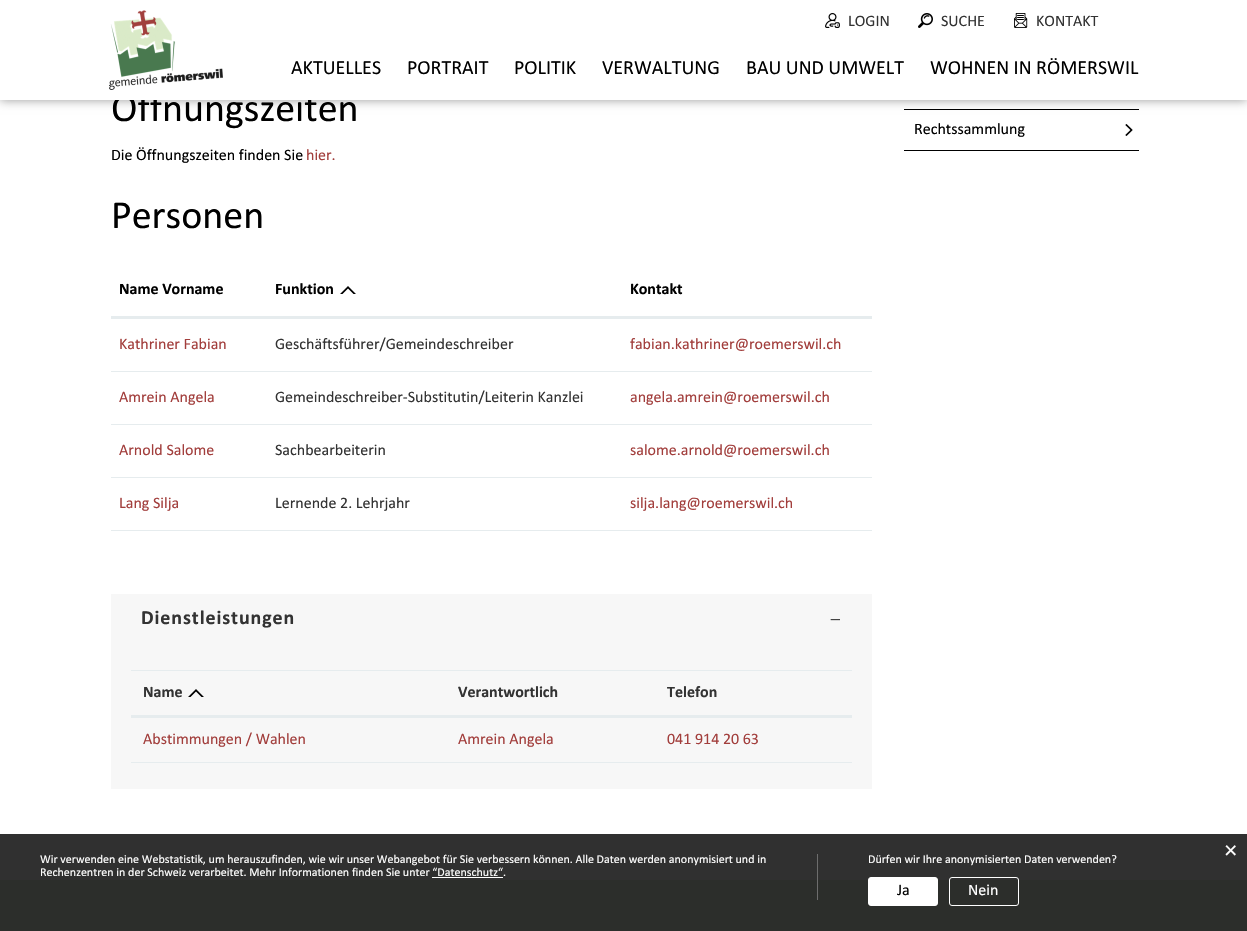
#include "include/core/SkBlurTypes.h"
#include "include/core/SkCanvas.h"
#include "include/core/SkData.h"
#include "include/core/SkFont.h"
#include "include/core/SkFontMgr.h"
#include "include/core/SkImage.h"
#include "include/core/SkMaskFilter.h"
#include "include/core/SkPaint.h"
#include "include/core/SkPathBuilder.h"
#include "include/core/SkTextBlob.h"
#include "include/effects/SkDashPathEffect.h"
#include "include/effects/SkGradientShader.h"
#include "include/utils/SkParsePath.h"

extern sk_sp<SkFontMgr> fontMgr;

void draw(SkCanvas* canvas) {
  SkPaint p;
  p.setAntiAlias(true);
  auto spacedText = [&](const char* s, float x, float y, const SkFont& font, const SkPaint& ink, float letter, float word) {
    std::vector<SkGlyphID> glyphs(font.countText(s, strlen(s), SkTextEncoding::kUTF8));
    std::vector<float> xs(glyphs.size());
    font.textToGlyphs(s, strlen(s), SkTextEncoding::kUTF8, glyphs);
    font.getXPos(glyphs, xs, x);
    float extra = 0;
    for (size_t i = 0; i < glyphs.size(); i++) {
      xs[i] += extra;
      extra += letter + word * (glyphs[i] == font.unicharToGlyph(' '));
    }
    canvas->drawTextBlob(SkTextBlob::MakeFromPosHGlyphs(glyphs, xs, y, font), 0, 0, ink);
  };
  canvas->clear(SK_ColorWHITE);
  p.setColor(SkColorSetRGB(48, 48, 48));
  canvas->drawRect(SkRect::MakeLTRB(0, 834, 1247, 880), p);
  p.setColor(SK_ColorBLACK);
  canvas->drawRect(SkRect::MakeLTRB(904, 109, 1139, 110), p);
  p.setColor(SkColorSetARGB(102, 0, 0, 0));
  p.setMaskFilter(SkMaskFilter::MakeBlur(kNormal_SkBlurStyle, 5));
  canvas->drawRect(SkRect::MakeLTRB(0, 0, 1247, 100), p);
  p.setMaskFilter(nullptr);
  p.setColor(SkColorSetRGB(230, 236, 238));
  canvas->drawRect(SkRect::MakeLTRB(111, 530, 872, 531), p);
  canvas->drawRect(SkRect::MakeLTRB(111, 316, 872, 318), p);
  canvas->drawImageRect(SkImages::DeferredFromEncodedData(SkData::MakeFromFileName("images/5.png")), SkRect::MakeLTRB(340, 286, 356, 294), SkSamplingOptions());
  canvas->drawRect(SkRect::MakeLTRB(111, 318, 872, 319), p);
  canvas->drawRect(SkRect::MakeLTRB(111, 371, 872, 372), p);
  canvas->drawRect(SkRect::MakeLTRB(111, 424, 872, 425), p);
  canvas->drawRect(SkRect::MakeLTRB(111, 477, 872, 478), p);
  p.setColor(SkColorSetRGB(247, 247, 247));
  canvas->drawRect(SkRect::MakeLTRB(111, 594, 872, 789), p);
  p.setColor(SkColorSetRGB(230, 236, 238));
  canvas->drawRect(SkRect::MakeLTRB(131, 762, 852, 763), p);
  canvas->drawImageRect(SkImages::DeferredFromEncodedData(SkData::MakeFromFileName("images/6.png")), SkRect::MakeLTRB(188, 689, 204, 697), SkSamplingOptions());
  canvas->drawRect(SkRect::MakeLTRB(131, 670, 852, 671), p);
  canvas->drawRect(SkRect::MakeLTRB(131, 715, 852, 717), p);
  canvas->drawRect(SkRect::MakeLTRB(131, 717, 852, 718), p);
  p.setColor(SK_ColorBLACK);
  canvas->drawRect(SkRect::MakeLTRB(904, 150, 1139, 151), p);
  canvas->drawImageRect(SkImages::DeferredFromEncodedData(SkData::MakeFromFileName("images/7.png")), SkRect::MakeLTRB(1125, 124, 1133, 136), SkSamplingOptions());
  p.setColor(SkColorSetRGB(44, 46, 43));
  canvas->drawRect(SkRect::MakeLTRB(0, 880, 1247, 931), p);
  p.setColor(SkColorSetRGB(109, 109, 109));
  canvas->drawRect(SkRect::MakeLTRB(817, 854, 818, 900), p);
  p.setColor(SK_ColorWHITE);
  canvas->drawRect(SkRect::MakeLTRB(432, 877, 503, 878), p);
  canvas->drawRoundRect(SkRect::MakeLTRB(868.5f, 877.5f, 937.5f, 905.5f), 2.5f, 2.5f, p);
  p.setStyle(SkPaint::kStroke_Style);
  p.setStrokeWidth(1);
  canvas->drawRoundRect(SkRect::MakeLTRB(868.5f, 877.5f, 937.5f, 905.5f), 2.5f, 2.5f, p);
  canvas->drawRoundRect(SkRect::MakeLTRB(949.5f, 877.5f, 1018.5f, 905.5f), 2.5f, 2.5f, p);
  SkFont font1(fontMgr->matchFamilyStyle("Calibri", SkFontStyle::Normal()), 40);
  font1.setSubpixel(true);
  p.setStyle(SkPaint::kFill_Style);
  p.setColor(SK_ColorBLACK);
  canvas->drawString("Öffnungszeiten", 111, 121, font1, p);
  p.setColor(SK_ColorWHITE);
  canvas->drawRect(SkRect::MakeLTRB(0, 0, 1247, 100), p);
  SkFont font2(fontMgr->matchFamilyStyle("Calibri", SkFontStyle::Normal()), 16);
  font2.setSubpixel(true);
  p.setColor(SkColorSetRGB(51, 51, 51));
  canvas->drawString("KONTAKT", 1036, 26, font2, p);
  canvas->drawImageRect(SkImages::DeferredFromEncodedData(SkData::MakeFromFileName("images/4.png")), SkRect::MakeLTRB(1014, 13, 1028, 28), SkSamplingOptions());
  canvas->drawString("SUCHE", 941, 26, font2, p);
  canvas->drawImageRect(SkImages::DeferredFromEncodedData(SkData::MakeFromFileName("images/3.png")), SkRect::MakeLTRB(918, 13, 933, 28), SkSamplingOptions());
  canvas->drawString("LOGIN", 848, 26, font2, p);
  canvas->drawImageRect(SkImages::DeferredFromEncodedData(SkData::MakeFromFileName("images/2.png")), SkRect::MakeLTRB(825, 13, 840, 28), SkSamplingOptions());
  SkFont font3(fontMgr->matchFamilyStyle("Calibri", SkFontStyle::Normal()), 20);
  font3.setSubpixel(true);
  p.setColor(SK_ColorBLACK);
  canvas->drawString("WOHNEN IN RÖMERSWIL", 930, 74, font3, p);
  canvas->drawString("BAU UND UMWELT", 746, 74, font3, p);
  canvas->drawString("VERWALTUNG", 602, 74, font3, p);
  canvas->drawString("POLITIK", 514, 74, font3, p);
  canvas->drawString("PORTRAIT", 407, 74, font3, p);
  canvas->drawString("AKTUELLES", 291, 74, font3, p);
  canvas->drawImageRect(SkImages::DeferredFromEncodedData(SkData::MakeFromFileName("images/1.png")), SkRect::MakeLTRB(109, 10, 223, 90), SkSamplingOptions());
  canvas->drawString("Die Öffnungszeiten finden Sie", 111, 160, font2, p);
  p.setColor(SkColorSetRGB(162, 62, 60));
  canvas->drawString("hier.", 306, 160, font2, p);
  p.setColor(SK_ColorBLACK);
  canvas->drawString("Personen", 111, 228, font1, p);
  SkFont font4(fontMgr->matchFamilyStyle("Calibri", SkFontStyle::Bold()), 16);
  font4.setSubpixel(true);
  canvas->drawString("Name Vorname", 119, 294, font4, p);
  canvas->drawString("Funktion", 275, 294, font4, p);
  canvas->drawString("Kontakt", 630, 294, font4, p);
  p.setColor(SkColorSetRGB(162, 62, 60));
  canvas->drawString("Kathriner Fabian", 119, 349, font2, p);
  p.setColor(SkColorSetRGB(51, 51, 51));
  canvas->drawString("Geschäftsführer/Gemeindeschreiber", 275, 349, font2, p);
  p.setColor(SkColorSetRGB(162, 62, 60));
  canvas->drawString("fabian.kathriner@roemerswil.ch", 630, 349, font2, p);
  canvas->drawString("Amrein Angela", 119, 402, font2, p);
  p.setColor(SkColorSetRGB(51, 51, 51));
  canvas->drawString("Gemeindeschreiber-Substitutin/Leiterin Kanzlei", 275, 402, font2, p);
  p.setColor(SkColorSetRGB(162, 62, 60));
  canvas->drawString("angela.amrein@roemerswil.ch", 630, 402, font2, p);
  canvas->drawString("Arnold Salome", 119, 455, font2, p);
  p.setColor(SkColorSetRGB(51, 51, 51));
  canvas->drawString("Sachbearbeiterin", 275, 455, font2, p);
  p.setColor(SkColorSetRGB(162, 62, 60));
  canvas->drawString("salome.arnold@roemerswil.ch", 630, 455, font2, p);
  canvas->drawString("Lang Silja", 119, 508, font2, p);
  p.setColor(SkColorSetRGB(51, 51, 51));
  canvas->drawString("Lernende 2. Lehrjahr", 275, 508, font2, p);
  p.setColor(SkColorSetRGB(162, 62, 60));
  canvas->drawString("silja.lang@roemerswil.ch", 630, 508, font2, p);
  SkFont font5(fontMgr->matchFamilyStyle("Calibri", SkFontStyle::Bold()), 20);
  font5.setSubpixel(true);
  p.setColor(SkColorSetRGB(51, 51, 51));
  spacedText("Dienstleistungen", 141, 624, font5, p, 0.9f, 0);
  SkFont font6(fontMgr->matchFamilyStyle("Liberation Serif", SkFontStyle::Normal()), 20);
  font6.setSubpixel(true);
  canvas->save();
  canvas->rotate(180, 841, 613);
  spacedText("−", 841, 613, font6, p, 0.9f, 0);
  canvas->restore();
  canvas->drawString("Name", 143, 697, font4, p);
  canvas->drawString("Verantwortlich", 458, 697, font4, p);
  canvas->drawString("Telefon", 667, 697, font4, p);
  p.setColor(SkColorSetRGB(162, 62, 60));
  canvas->drawString("Abstimmungen / Wahlen", 143, 744, font2, p);
  canvas->drawString("Amrein Angela", 458, 744, font2, p);
  canvas->drawString("041 914 20 63", 667, 744, font2, p);
  p.setColor(SK_ColorBLACK);
  canvas->drawString("Rechtssammlung", 914, 134, font2, p);
  SkFont font7(fontMgr->matchFamilyStyle("Liberation Sans", SkFontStyle::Normal()), 23);
  font7.setSubpixel(true);
  p.setColor(SK_ColorWHITE);
  canvas->drawString("×", 1224, 858, font7, p);
  SkFont font8(fontMgr->matchFamilyStyle("Calibri", SkFontStyle::Normal()), 12);
  font8.setSubpixel(true);
  canvas->drawString("Wir verwenden eine Webstatistik, um herauszufinden, wie wir unser Webangebot für Sie verbessern können. Alle Daten werden anonymisiert und in", 40, 863, font8, p);
  canvas->drawString("Rechenzentren in der Schweiz verarbeitet. Mehr Informationen finden Sie unter “Datenschutz“.", 40, 876, font8, p);
  canvas->drawString("Dürfen wir Ihre anonymisierten Daten verwenden?", 868, 863, font8, p);
  p.setColor(SK_ColorBLACK);
  canvas->drawString("Ja", 897, 895, font2, p);
  p.setColor(SK_ColorWHITE);
  canvas->drawString("Nein", 968, 895, font2, p);
}
